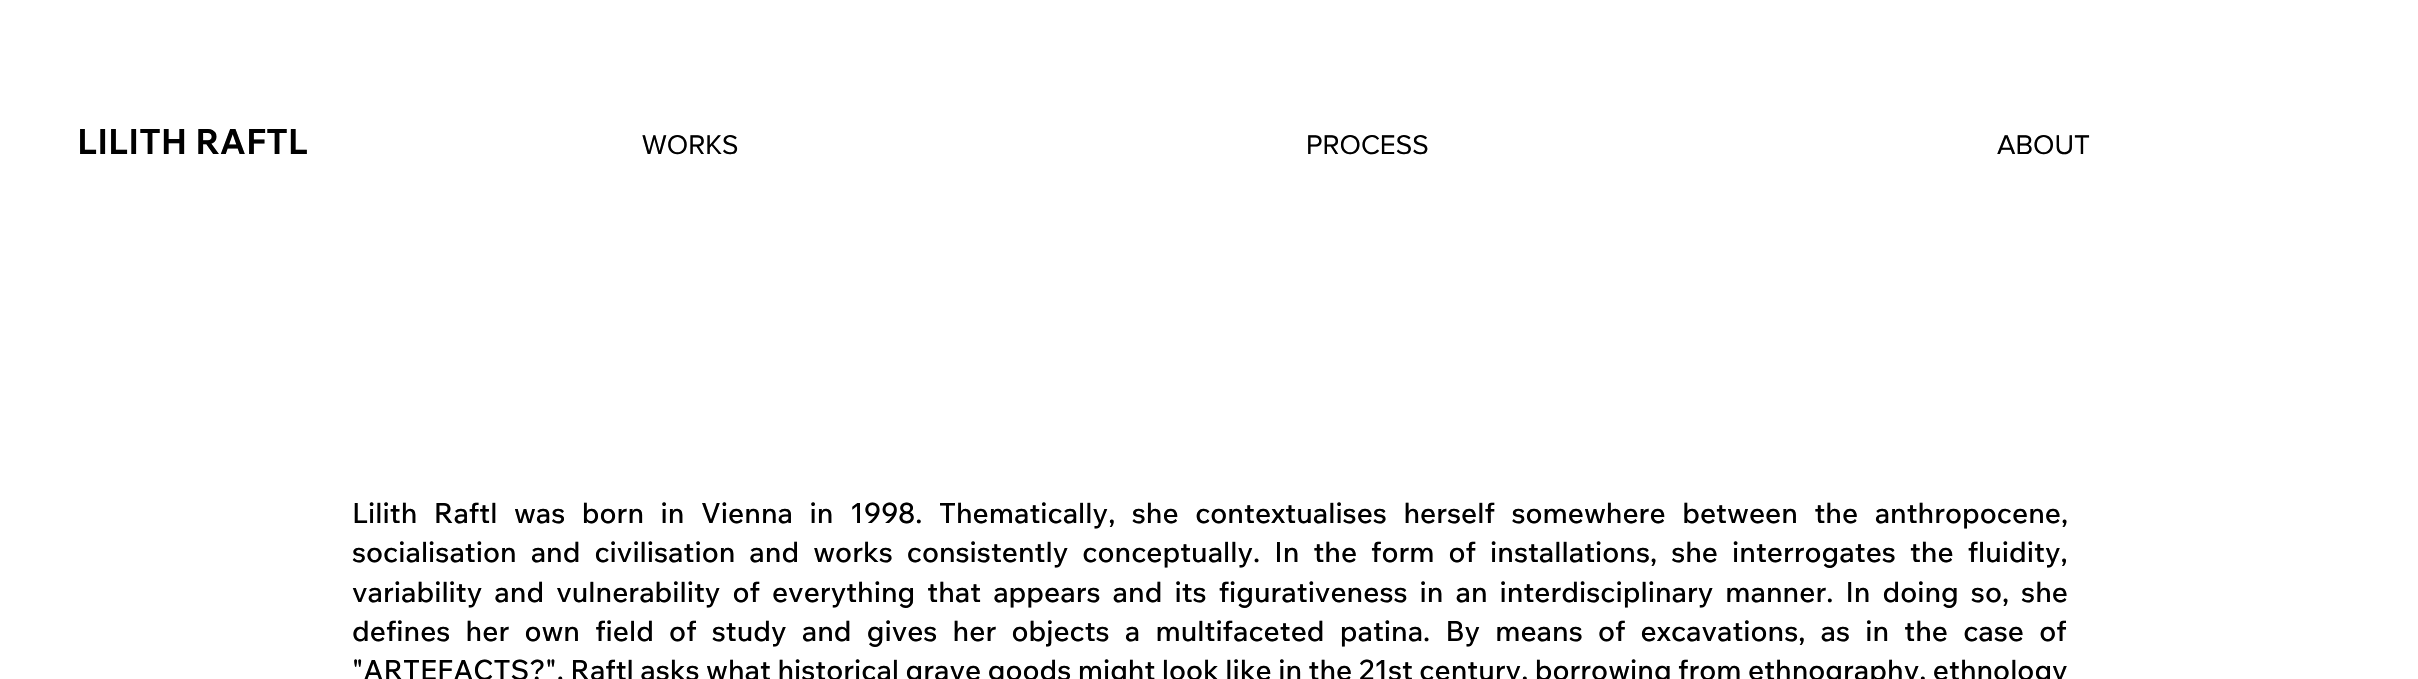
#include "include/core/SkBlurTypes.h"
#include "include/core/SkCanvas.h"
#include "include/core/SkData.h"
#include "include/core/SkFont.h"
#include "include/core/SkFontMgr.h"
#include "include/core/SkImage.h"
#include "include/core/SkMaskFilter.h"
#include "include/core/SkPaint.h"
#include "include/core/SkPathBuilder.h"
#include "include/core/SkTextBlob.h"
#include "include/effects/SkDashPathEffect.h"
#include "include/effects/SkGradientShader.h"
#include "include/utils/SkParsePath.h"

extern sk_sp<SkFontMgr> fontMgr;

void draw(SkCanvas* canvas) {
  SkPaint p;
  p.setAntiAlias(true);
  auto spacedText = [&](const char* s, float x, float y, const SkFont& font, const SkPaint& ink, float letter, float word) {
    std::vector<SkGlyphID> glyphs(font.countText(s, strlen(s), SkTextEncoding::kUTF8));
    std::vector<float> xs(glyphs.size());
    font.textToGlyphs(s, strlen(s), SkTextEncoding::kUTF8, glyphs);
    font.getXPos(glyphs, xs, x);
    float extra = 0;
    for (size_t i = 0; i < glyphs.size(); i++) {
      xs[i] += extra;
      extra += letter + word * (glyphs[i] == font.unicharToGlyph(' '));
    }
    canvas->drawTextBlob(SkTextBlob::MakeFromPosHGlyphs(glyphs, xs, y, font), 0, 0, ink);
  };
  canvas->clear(SK_ColorWHITE);
  SkFont font1(fontMgr->matchFamilyStyle("Wix Madefor Text", SkFontStyle::Bold()), 35);
  font1.setSubpixel(true);
  p.setColor(SK_ColorBLACK);
  canvas->drawString("LILITH RAFTL", 77, 154, font1, p);
  SkFont font2(fontMgr->matchFamilyStyle("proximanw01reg", SkFontStyle::Normal()), 28);
  font2.setSubpixel(true);
  canvas->drawString("WORKS", 642, 154, font2, p);
  canvas->drawString("PROCESS", 1306, 154, font2, p);
  canvas->drawString("ABOUT", 1997, 154, font2, p);
  SkFont font3(fontMgr->matchFamilyStyle("Wix Madefor Text", SkFontStyle(500, SkFontStyle::kNormal_Width, SkFontStyle::kUpright_Slant)), 28);
  font3.setSubpixel(true);
  spacedText("Lilith Raftl was born in Vienna in 1998. Thematically, she contextualises herself somewhere between the anthropocene,", 352, 523, font3, p, 0, 10.25f);
  spacedText("socialisation and civilisation and works consistently conceptually. In the form of installations, she interrogates the fluidity,", 352, 562, font3, p, 0, 7.75f);
  spacedText("variability and vulnerability of everything that appears and its figurativeness in an interdisciplinary manner. In doing so, she", 352, 602, font3, p, 0, 5.75f);
  spacedText("defines her own field of study and gives her objects a multifaceted patina. By means of excavations, as in the case of", 352, 641, font3, p, 0, 8.9f);
  spacedText("\"ARTEFACTS?\", Raftl asks what historical grave goods might look like in the 21st century, borrowing from ethnography, ethnology", 352, 680, font3, p, 0, 0.2f);
}
